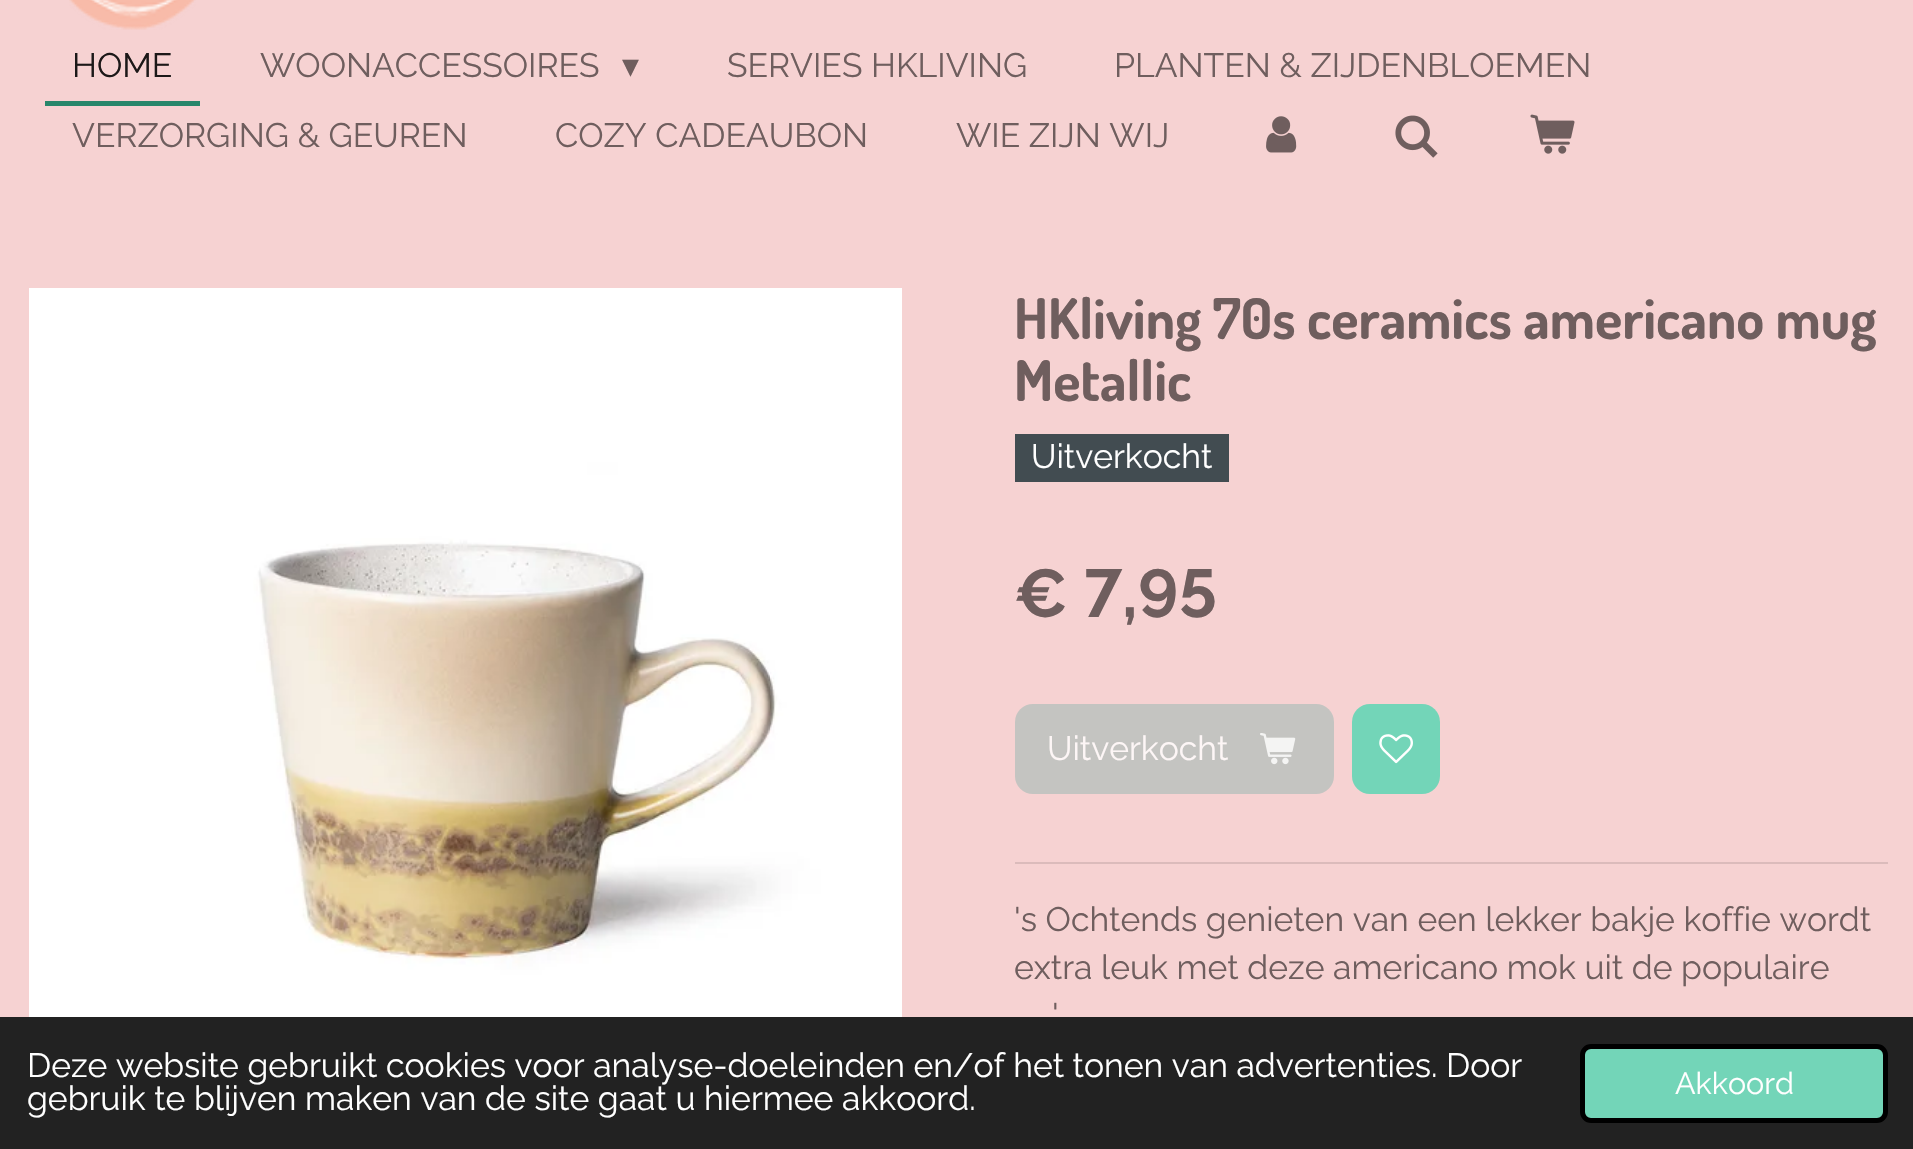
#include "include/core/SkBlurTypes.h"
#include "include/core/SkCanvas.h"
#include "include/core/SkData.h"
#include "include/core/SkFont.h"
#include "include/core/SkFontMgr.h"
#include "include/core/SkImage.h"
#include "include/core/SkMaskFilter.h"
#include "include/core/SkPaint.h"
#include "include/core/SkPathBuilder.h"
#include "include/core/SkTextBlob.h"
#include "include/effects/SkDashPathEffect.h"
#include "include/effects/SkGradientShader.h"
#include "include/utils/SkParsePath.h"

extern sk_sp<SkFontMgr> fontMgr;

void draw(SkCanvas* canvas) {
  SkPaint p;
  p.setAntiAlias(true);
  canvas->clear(SkColorSetRGB(246, 210, 210));
  canvas->drawImageRect(SkImages::DeferredFromEncodedData(SkData::MakeFromFileName("images/1.png")), SkRect::MakeLTRB(69, 0, 196, 30), SkSamplingOptions());
  p.setColor(SkColorSetRGB(40, 135, 107));
  canvas->drawRect(SkRect::MakeLTRB(45, 101, 200, 106), p);
  canvas->drawImageRect(SkImages::DeferredFromEncodedData(SkData::MakeFromFileName("images/2.png")), SkRect::MakeLTRB(1266, 116, 1297, 153), SkSamplingOptions());
  canvas->drawImageRect(SkImages::DeferredFromEncodedData(SkData::MakeFromFileName("images/3.png")), SkRect::MakeLTRB(1395, 115, 1438, 158), SkSamplingOptions());
  canvas->drawImageRect(SkImages::DeferredFromEncodedData(SkData::MakeFromFileName("images/4.png")), SkRect::MakeLTRB(1530, 114, 1575, 154), SkSamplingOptions());
  canvas->drawImageRect(SkImages::DeferredFromEncodedData(SkData::MakeFromFileName("images/5.png")), SkRect::MakeLTRB(29, 288, 902, 1017), SkSamplingOptions());
  p.setColor(SkColorSetRGB(66, 76, 81));
  canvas->drawRect(SkRect::MakeLTRB(1015, 434, 1229, 482), p);
  p.setColor(SkColorSetRGB(196, 196, 193));
  canvas->drawRoundRect(SkRect::MakeLTRB(1015, 704, 1334, 794), 18, 18, p);
  canvas->drawImageRect(SkImages::DeferredFromEncodedData(SkData::MakeFromFileName("images/6.png")), SkRect::MakeLTRB(1260, 733, 1296, 765), SkSamplingOptions());
  p.setColor(SkColorSetRGB(115, 213, 184));
  canvas->drawRoundRect(SkRect::MakeLTRB(1352, 704, 1440, 794), 18, 18, p);
  canvas->drawImageRect(SkImages::DeferredFromEncodedData(SkData::MakeFromFileName("images/7.png")), SkRect::MakeLTRB(1379, 734, 1413, 764), SkSamplingOptions());
  p.setColor(SkColorSetRGB(219, 187, 187));
  canvas->drawRect(SkRect::MakeLTRB(1015, 862, 1888, 864), p);
  p.setColor(SkColorSetRGB(34, 34, 34));
  canvas->drawRect(SkRect::MakeLTRB(0, 1017, 1913, 1149), p);
  p.setColor(SkColorSetRGB(115, 213, 184));
  canvas->drawRoundRect(SkRect::MakeLTRB(1582.5f, 1046.5f, 1885.5f, 1120.5f), 8.5f, 8.5f, p);
  p.setStyle(SkPaint::kStroke_Style);
  p.setStrokeWidth(5);
  p.setColor(SK_ColorBLACK);
  canvas->drawRoundRect(SkRect::MakeLTRB(1582.5f, 1046.5f, 1885.5f, 1120.5f), 8.5f, 8.5f, p);
  SkFont font1(fontMgr->matchFamilyStyle("Raleway", SkFontStyle::Normal()), 33.75f);
  font1.setSubpixel(true);
  p.setStyle(SkPaint::kFill_Style);
  p.setColor(SkColorSetRGB(28, 24, 24));
  canvas->drawString("HOME", 72, 77, font1, p);
  p.setColor(SkColorSetRGB(111, 94, 94));
  canvas->drawString("WOONACCESSOIRES", 260, 77, font1, p);
  SkFont font2(fontMgr->matchFamilyStyle("DejaVu Sans", SkFontStyle::Normal()), 33.75f);
  font2.setSubpixel(true);
  canvas->drawString("▾", 622, 77, font2, p);
  canvas->drawString("SERVIES HKLIVING", 727, 77, font1, p);
  canvas->drawString("PLANTEN & ZIJDENBLOEMEN", 1114, 77, font1, p);
  canvas->drawString("VERZORGING & GEUREN", 72, 147, font1, p);
  canvas->drawString("COZY CADEAUBON", 555, 147, font1, p);
  canvas->drawString("WIE ZIJN WIJ", 956, 147, font1, p);
  SkFont font3(fontMgr->matchFamilyStyle("Dosis", SkFontStyle::Bold()), 56.25f);
  font3.setSubpixel(true);
  canvas->drawString("HKliving 70s ceramics americano mug", 1014, 339, font3, p);
  canvas->drawString("Metallic", 1014, 401, font3, p);
  p.setColor(SK_ColorWHITE);
  canvas->drawString("Uitverkocht", 1031, 468, font1, p);
  SkFont font4(fontMgr->matchFamilyStyle("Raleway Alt", SkFontStyle::Bold()), 67.5f);
  font4.setSubpixel(true);
  p.setColor(SkColorSetRGB(111, 94, 94));
  canvas->drawString("€ 7,95", 1014, 617, font4, p);
  p.setColor(SkColorSetRGB(253, 246, 246));
  canvas->drawString("Uitverkocht", 1047, 760, font1, p);
  p.setColor(SkColorSetRGB(111, 94, 94));
  canvas->drawString("'s Ochtends genieten van een lekker bakje koffie wordt", 1014, 931, font1, p);
  canvas->drawString("extra leuk met deze americano mok uit de populaire", 1014, 979, font1, p);
  canvas->drawString("'", 1052, 1027, font1, p);
  p.setColor(SK_ColorWHITE);
  canvas->drawString("Deze website gebruikt cookies voor analyse-doeleinden en/of het tonen van advertenties. Door", 27, 1077, font1, p);
  canvas->drawString("gebruik te blijven maken van de site gaat u hiermee akkoord.", 27, 1110, font1, p);
  SkFont font5(fontMgr->matchFamilyStyle("Raleway", SkFontStyle::Normal()), 30.5f);
  font5.setSubpixel(true);
  canvas->drawString("Akkoord", 1675, 1094, font5, p);
}
